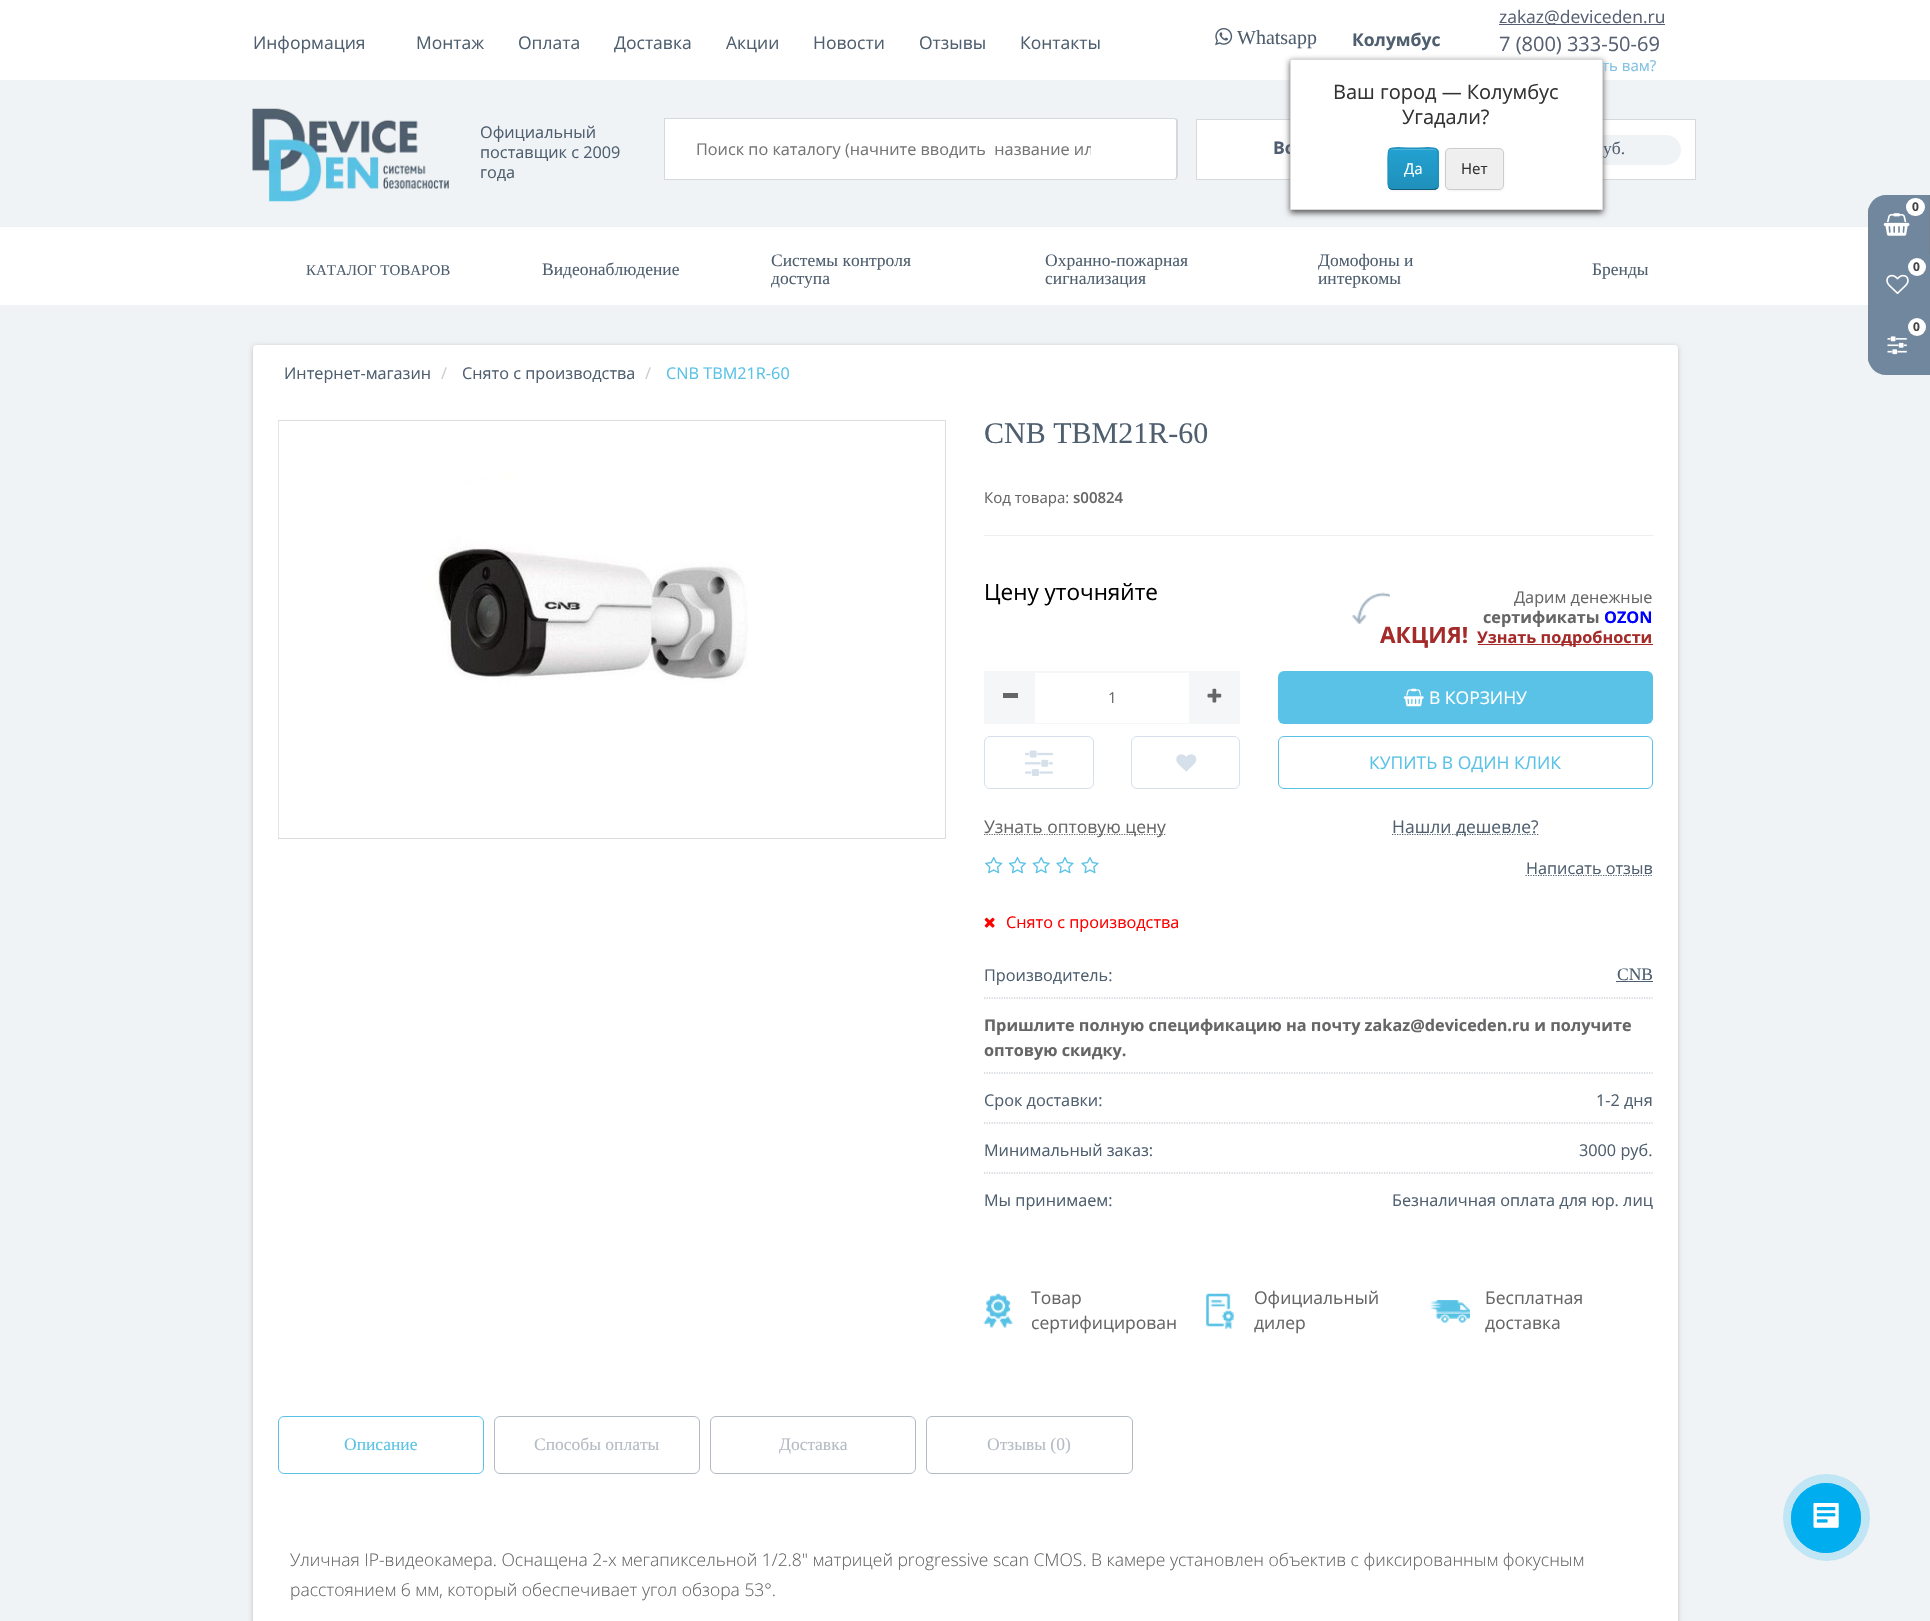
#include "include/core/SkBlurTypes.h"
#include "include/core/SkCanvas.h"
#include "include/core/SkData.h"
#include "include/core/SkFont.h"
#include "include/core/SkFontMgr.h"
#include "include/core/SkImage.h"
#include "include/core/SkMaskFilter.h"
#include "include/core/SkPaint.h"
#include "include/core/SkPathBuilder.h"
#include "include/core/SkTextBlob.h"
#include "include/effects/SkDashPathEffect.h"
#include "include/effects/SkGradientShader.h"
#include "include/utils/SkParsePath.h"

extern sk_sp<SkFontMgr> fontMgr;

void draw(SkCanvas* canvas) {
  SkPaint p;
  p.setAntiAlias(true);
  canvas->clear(SkColorSetRGB(240, 243, 246));
  p.setColor(SK_ColorWHITE);
  canvas->drawRect(SkRect::MakeLTRB(0, 0, 1930, 80), p);
  canvas->drawImageRect(SkImages::DeferredFromEncodedData(SkData::MakeFromFileName("images/1.png")), SkRect::MakeLTRB(1215, 28, 1233, 46), SkSamplingOptions());
  canvas->drawRect(SkRect::MakeLTRB(1196.5f, 119.5f, 1695.5f, 179.5f), p);
  p.setStyle(SkPaint::kStroke_Style);
  p.setStrokeWidth(1);
  p.setColor(SkColorSetRGB(213, 217, 221));
  canvas->drawRect(SkRect::MakeLTRB(1196.5f, 119.5f, 1695.5f, 179.5f), p);
  p.setStyle(SkPaint::kFill_Style);
  p.setColor(SkColorSetRGB(240, 243, 246));
  canvas->drawRoundRect(SkRect::MakeLTRB(1525, 135, 1681, 165), 15, 15, p);
  p.setColor(SkColorSetRGB(91, 90, 90));
  p.setMaskFilter(SkMaskFilter::MakeBlur(kNormal_SkBlurStyle, 3));
  canvas->drawRect(SkRect::MakeLTRB(1290, 61, 1603, 213), p);
  p.setMaskFilter(nullptr);
  p.setColor(SkColorSetRGB(86, 96, 114));
  canvas->drawRect(SkRect::MakeLTRB(1499, 24, 1665, 25), p);
  canvas->drawImageRect(SkImages::DeferredFromEncodedData(SkData::MakeFromFileName("images/2.png")), SkRect::MakeLTRB(252, 108, 449, 202), SkSamplingOptions());
  p.setColor(SK_ColorWHITE);
  canvas->drawRect(SkRect::MakeLTRB(665, 119, 1121, 179), p);
  p.setColor(SkColorSetRGB(213, 217, 221));
  canvas->drawRect(SkRect::MakeLTRB(664, 118, 1123, 119), p);
  canvas->drawRect(SkRect::MakeLTRB(664, 179, 1123, 180), p);
  canvas->drawRect(SkRect::MakeLTRB(664, 118, 665, 180), p);
  p.setColor(SK_ColorWHITE);
  canvas->drawPath(SkPathBuilder().moveTo(1121, 118).lineTo(1174, 118).cubicTo(1176, 118, 1178, 120, 1178, 122).lineTo(1178, 176).cubicTo(1178, 178, 1176, 180, 1174, 180).lineTo(1121, 180).close().detach(), p);
  p.setColor(SkColorSetRGB(213, 217, 221));
  canvas->drawPath(SkPathBuilder(SkPathFillType::kEvenOdd).moveTo(1121, 118).lineTo(1174, 118).cubicTo(1176, 118, 1178, 119, 1178, 121).lineTo(1178, 176).cubicTo(1178, 178, 1176, 180, 1174, 180).lineTo(1121, 180).close().moveTo(1121, 119).lineTo(1174, 119).cubicTo(1175, 119, 1176, 120, 1176, 121).lineTo(1176, 176).cubicTo(1176, 178, 1175, 179, 1174, 179).lineTo(1121, 179).close().detach(), p);
  p.setColor(SK_ColorWHITE);
  canvas->drawRect(SkRect::MakeLTRB(0, 227, 1868, 305), p);
  p.setColor(SkColorSetRGB(237, 241, 246));
  canvas->drawRect(SkRect::MakeLTRB(0, 226, 1868, 227), p);
  p.setColor(SkColorSetRGB(112, 135, 158));
  canvas->drawPath(SkPathBuilder().moveTo(1886, 195).lineTo(1930, 195).lineTo(1930, 375).lineTo(1886, 375).cubicTo(1876, 375, 1868, 367, 1868, 357).lineTo(1868, 213).cubicTo(1868, 203, 1876, 195, 1886, 195).close().detach(), p);
  p.setColor(SkColorSetRGB(118, 130, 143));
  canvas->drawRect(SkRect::MakeLTRB(1929, 195, 1930, 255), p);
  canvas->save();
  canvas->clipPath(SkPathBuilder().moveTo(1886, 195).lineTo(1930, 195).lineTo(1930, 375).lineTo(1886, 375).cubicTo(1876, 375, 1868, 367, 1868, 357).lineTo(1868, 213).cubicTo(1868, 203, 1876, 195, 1886, 195).close().detach(), true);
  canvas->drawRect(SkRect::MakeLTRB(1868, 207, 1869, 255), p);
  canvas->restore();
  canvas->drawImageRect(SkImages::DeferredFromEncodedData(SkData::MakeFromFileName("images/3.png")), SkRect::MakeLTRB(1883, 213, 1910, 236), SkSamplingOptions());
  p.setColor(SK_ColorWHITE);
  canvas->drawRoundRect(SkRect::MakeLTRB(1906, 198, 1925, 216), 9, 9, p);
  p.setColor(SkColorSetRGB(118, 130, 143));
  canvas->drawRect(SkRect::MakeLTRB(1868, 255, 1869, 315), p);
  canvas->drawImageRect(SkImages::DeferredFromEncodedData(SkData::MakeFromFileName("images/4.png")), SkRect::MakeLTRB(1886, 274, 1909, 294), SkSamplingOptions());
  p.setColor(SK_ColorWHITE);
  canvas->drawCircle(1917, 267, 9, p);
  canvas->save();
  canvas->clipPath(SkPathBuilder().moveTo(1886, 195).lineTo(1930, 195).lineTo(1930, 375).lineTo(1886, 375).cubicTo(1876, 375, 1868, 367, 1868, 357).lineTo(1868, 213).cubicTo(1868, 203, 1876, 195, 1886, 195).close().detach(), true);
  p.setColor(SkColorSetRGB(118, 130, 143));
  canvas->drawRect(SkRect::MakeLTRB(1868, 315, 1869, 363), p);
  canvas->restore();
  p.setColor(SK_ColorWHITE);
  canvas->drawCircle(1917, 327, 9, p);
  canvas->drawImageRect(SkImages::DeferredFromEncodedData(SkData::MakeFromFileName("images/5.png")), SkRect::MakeLTRB(1887, 336, 1907, 355), SkSamplingOptions());
  p.setColor(SkColorSetARGB(51, 0, 0, 0));
  p.setMaskFilter(SkMaskFilter::MakeBlur(kNormal_SkBlurStyle, 2.5f));
  canvas->drawRoundRect(SkRect::MakeLTRB(253, 346, 1678, 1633), 4, 4, p);
  p.setMaskFilter(nullptr);
  p.setColor(SK_ColorWHITE);
  canvas->drawRoundRect(SkRect::MakeLTRB(253, 345, 1678, 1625), 4, 4, p);
  p.setStyle(SkPaint::kStroke_Style);
  p.setColor(SkColorSetRGB(221, 221, 221));
  canvas->drawRect(SkRect::MakeLTRB(278.5f, 420.5f, 945.5f, 838.5f), p);
  canvas->drawImageRect(SkImages::DeferredFromEncodedData(SkData::MakeFromFileName("images/6.png")), SkRect::MakeLTRB(278, 421, 748, 838), SkSamplingOptions());
  p.setStyle(SkPaint::kFill_Style);
  p.setColor(SkColorSetRGB(238, 238, 238));
  canvas->drawRect(SkRect::MakeLTRB(984, 535, 1653, 536), p);
  canvas->drawImageRect(SkImages::DeferredFromEncodedData(SkData::MakeFromFileName("images/7.png")), SkRect::MakeLTRB(1352, 592, 1390, 624), SkSamplingOptions());
  p.setColor(SkColorSetRGB(165, 42, 42));
  canvas->drawRect(SkRect::MakeLTRB(1478, 644, 1653, 645), p);
  p.setColor(SkColorSetRGB(244, 246, 248));
  canvas->drawRect(SkRect::MakeLTRB(984, 671, 1240, 724), p);
  p.setColor(SkColorSetRGB(102, 102, 102));
  canvas->drawRect(SkRect::MakeLTRB(1003, 693, 1018, 698), p);
  p.setColor(SK_ColorWHITE);
  canvas->drawRect(SkRect::MakeLTRB(1035, 673, 1189, 723), p);
  canvas->drawImageRect(SkImages::DeferredFromEncodedData(SkData::MakeFromFileName("images/8.png")), SkRect::MakeLTRB(1207, 688, 1222, 703), SkSamplingOptions());
  p.setColor(SkColorSetRGB(89, 194, 230));
  canvas->drawRoundRect(SkRect::MakeLTRB(1278, 671, 1653, 724), 6, 6, p);
  canvas->drawImageRect(SkImages::DeferredFromEncodedData(SkData::MakeFromFileName("images/9.png")), SkRect::MakeLTRB(1403, 688, 1424, 707), SkSamplingOptions());
  p.setStyle(SkPaint::kStroke_Style);
  p.setColor(SkColorSetRGB(214, 224, 235));
  canvas->drawRoundRect(SkRect::MakeLTRB(984.5f, 736.5f, 1093.5f, 788.5f), 5.5f, 5.5f, p);
  canvas->drawImageRect(SkImages::DeferredFromEncodedData(SkData::MakeFromFileName("images/10.png")), SkRect::MakeLTRB(1025, 750, 1053, 776), SkSamplingOptions());
  canvas->drawRoundRect(SkRect::MakeLTRB(1131.5f, 736.5f, 1239.5f, 788.5f), 5.5f, 5.5f, p);
  canvas->drawImageRect(SkImages::DeferredFromEncodedData(SkData::MakeFromFileName("images/11.png")), SkRect::MakeLTRB(1176, 754, 1197, 772), SkSamplingOptions());
  p.setColor(SkColorSetRGB(89, 194, 230));
  canvas->drawRoundRect(SkRect::MakeLTRB(1278.5f, 736.5f, 1652.5f, 788.5f), 5.5f, 5.5f, p);
  p.setStrokeWidth(1.2f);
  p.setColor(SkColorSetRGB(102, 102, 102));
  p.setPathEffect(SkDashPathEffect::Make({{1.25f, 1.25f}}, 0));
  canvas->drawPath(SkPathBuilder().moveTo(984, 834.5f).lineTo(1165.5f, 834.5f).detach(), p);
  p.setPathEffect(nullptr);
  p.setColor(SkColorSetRGB(79, 95, 111));
  p.setPathEffect(SkDashPathEffect::Make({{1.25f, 1.25f}}, 0));
  canvas->drawPath(SkPathBuilder().moveTo(1392, 834.5f).lineTo(1538.5f, 834.5f).detach(), p);
  p.setPathEffect(nullptr);
  canvas->drawImageRect(SkImages::DeferredFromEncodedData(SkData::MakeFromFileName("images/12.png")), SkRect::MakeLTRB(985, 856, 1003, 874), SkSamplingOptions());
  canvas->drawImageRect(SkImages::DeferredFromEncodedData(SkData::MakeFromFileName("images/13.png")), SkRect::MakeLTRB(1008, 856, 1027, 874), SkSamplingOptions());
  canvas->drawImageRect(SkImages::DeferredFromEncodedData(SkData::MakeFromFileName("images/14.png")), SkRect::MakeLTRB(1032, 856, 1050, 874), SkSamplingOptions());
  canvas->drawImageRect(SkImages::DeferredFromEncodedData(SkData::MakeFromFileName("images/15.png")), SkRect::MakeLTRB(1056, 856, 1074, 874), SkSamplingOptions());
  canvas->drawImageRect(SkImages::DeferredFromEncodedData(SkData::MakeFromFileName("images/15.png")), SkRect::MakeLTRB(1081, 856, 1099, 874), SkSamplingOptions());
  p.setPathEffect(SkDashPathEffect::Make({{1.25f, 1.25f}}, 0));
  canvas->drawPath(SkPathBuilder().moveTo(1525.5f, 875.5f).lineTo(1652.5f, 875.5f).detach(), p);
  p.setPathEffect(nullptr);
  canvas->drawImageRect(SkImages::DeferredFromEncodedData(SkData::MakeFromFileName("images/16.png")), SkRect::MakeLTRB(984, 917, 995, 928), SkSamplingOptions());
  p.setColor(SkColorSetRGB(180, 187, 195));
  p.setPathEffect(SkDashPathEffect::Make({{1.25f, 1.25f}}, 0));
  canvas->drawPath(SkPathBuilder().moveTo(984, 998).lineTo(1652.5f, 998).detach(), p);
  p.setPathEffect(nullptr);
  p.setStyle(SkPaint::kFill_Style);
  p.setColor(SkColorSetRGB(79, 95, 111));
  canvas->drawRect(SkRect::MakeLTRB(1616, 981, 1653, 982), p);
  p.setStyle(SkPaint::kStroke_Style);
  p.setColor(SkColorSetRGB(180, 187, 195));
  p.setPathEffect(SkDashPathEffect::Make({{1.25f, 1.25f}}, 0));
  canvas->drawPath(SkPathBuilder().moveTo(984, 1073).lineTo(1652.5f, 1073).detach(), p);
  p.setPathEffect(nullptr);
  p.setPathEffect(SkDashPathEffect::Make({{1.25f, 1.25f}}, 0));
  canvas->drawPath(SkPathBuilder().moveTo(984, 1123).lineTo(1652.5f, 1123).detach(), p);
  p.setPathEffect(nullptr);
  p.setPathEffect(SkDashPathEffect::Make({{1.25f, 1.25f}}, 0));
  canvas->drawPath(SkPathBuilder().moveTo(984, 1173).lineTo(1652.5f, 1173).detach(), p);
  p.setPathEffect(nullptr);
  canvas->drawImageRect(SkImages::DeferredFromEncodedData(SkData::MakeFromFileName("images/17.png")), SkRect::MakeLTRB(983, 1293, 1013, 1328), SkSamplingOptions());
  canvas->drawImageRect(SkImages::DeferredFromEncodedData(SkData::MakeFromFileName("images/18.png")), SkRect::MakeLTRB(1206, 1293, 1234, 1329), SkSamplingOptions());
  canvas->drawImageRect(SkImages::DeferredFromEncodedData(SkData::MakeFromFileName("images/19.png")), SkRect::MakeLTRB(1430, 1300, 1470, 1323), SkSamplingOptions());
  p.setStrokeWidth(1);
  p.setColor(SkColorSetRGB(89, 194, 230));
  canvas->drawRoundRect(SkRect::MakeLTRB(278.5f, 1416.5f, 483.5f, 1473.5f), 5.5f, 5.5f, p);
  p.setColor(SkColorSetRGB(180, 187, 195));
  canvas->drawRoundRect(SkRect::MakeLTRB(494.5f, 1416.5f, 699.5f, 1473.5f), 5.5f, 5.5f, p);
  canvas->drawRoundRect(SkRect::MakeLTRB(710.5f, 1416.5f, 915.5f, 1473.5f), 5.5f, 5.5f, p);
  canvas->drawRoundRect(SkRect::MakeLTRB(926.5f, 1416.5f, 1132.5f, 1473.5f), 5.5f, 5.5f, p);
  p.setStyle(SkPaint::kFill_Style);
  p.setColor(SkColorSetRGB(192, 229, 245));
  canvas->drawCircle(1826.5f, 1517.5f, 43.5f, p);
  p.setStyle(SkPaint::kStroke_Style);
  p.setColor(SkColorSetRGB(0, 174, 239));
  canvas->drawCircle(1826, 1518, 34.5f, p);
  p.setStyle(SkPaint::kFill_Style);
  canvas->drawCircle(1826, 1518, 35, p);
  canvas->drawImageRect(SkImages::DeferredFromEncodedData(SkData::MakeFromFileName("images/20.png")), SkRect::MakeLTRB(1813, 1503, 1839, 1528), SkSamplingOptions());
  SkFont font1(fontMgr->matchFamilyStyle("Open Sans", SkFontStyle::Normal()), 17.5f);
  font1.setSubpixel(true);
  p.setColor(SkColorSetRGB(79, 95, 111));
  canvas->drawString("Информация", 253, 49, font1, p);
  canvas->drawString("Монтаж", 416, 49, font1, p);
  canvas->drawString("Оплата", 518, 49, font1, p);
  canvas->drawString("Доставка", 614, 49, font1, p);
  canvas->drawString("Акции", 726, 49, font1, p);
  canvas->drawString("Новости", 813, 49, font1, p);
  canvas->drawString("Отзывы", 919, 49, font1, p);
  canvas->drawString("Контакты", 1020, 49, font1, p);
  SkFont font2(fontMgr->matchFamilyStyle("Liberation Serif", SkFontStyle::Normal()), 20);
  font2.setSubpixel(true);
  canvas->drawString("Whatsapp", 1237, 44, font2, p);
  SkFont font3(fontMgr->matchFamilyStyle("Open Sans", SkFontStyle::Bold()), 17.5f);
  font3.setSubpixel(true);
  canvas->drawString("Колумбус", 1352, 46, font3, p);
  p.setColor(SkColorSetRGB(86, 96, 114));
  canvas->drawString("zakaz@deviceden.ru", 1499, 23, font1, p);
  SkFont font4(fontMgr->matchFamilyStyle("Open Sans", SkFontStyle::Normal()), 20);
  font4.setSubpixel(true);
  canvas->drawString("7 (800) 333-50-69", 1499, 51, font4, p);
  SkFont font5(fontMgr->matchFamilyStyle("Open Sans", SkFontStyle::Normal()), 15);
  font5.setSubpixel(true);
  p.setColor(SkColorSetRGB(129, 193, 228));
  canvas->drawString("ть вам?", 1602, 71, font5, p);
  SkFont font6(fontMgr->matchFamilyStyle("Open Sans", SkFontStyle::Normal()), 16.25f);
  font6.setSubpixel(true);
  p.setColor(SkColorSetRGB(79, 95, 111));
  canvas->drawString("Официальный", 480, 138, font6, p);
  canvas->drawString("поставщик с 2009", 480, 158, font6, p);
  canvas->drawString("года", 480, 178, font6, p);
  canvas->save();
  canvas->clipRect(SkRect::MakeLTRB(696, 138, 1091, 160));
  p.setColor(SkColorSetRGB(117, 117, 117));
  canvas->drawString("Поиск по каталогу (начните вводить  название ил", 696, 155, font6, p);
  canvas->restore();
  p.setColor(SkColorSetRGB(79, 95, 111));
  canvas->drawString("Во", 1273, 154, font3, p);
  SkFont font7(fontMgr->matchFamilyStyle("Liberation Serif", SkFontStyle::Normal()), 17.5f);
  font7.setSubpixel(true);
  canvas->drawString("уб.", 1603, 154, font7, p);
  p.setColor(SK_ColorWHITE);
  canvas->drawRect(SkRect::MakeLTRB(1290.5f, 59.5f, 1602.5f, 209.5f), p);
  p.setStyle(SkPaint::kStroke_Style);
  p.setColor(SkColorSetRGB(218, 218, 218));
  canvas->drawRect(SkRect::MakeLTRB(1290.5f, 59.5f, 1602.5f, 209.5f), p);
  p.setStyle(SkPaint::kFill_Style);
  p.setColor(SkColorSetARGB(13, 0, 0, 0));
  p.setMaskFilter(SkMaskFilter::MakeBlur(kNormal_SkBlurStyle, 1));
  canvas->drawRoundRect(SkRect::MakeLTRB(1445, 149, 1504, 191), 5, 5, p);
  p.setMaskFilter(nullptr);
  p.setColor(SkColorSetRGB(239, 239, 239));
  canvas->drawRoundRect(SkRect::MakeLTRB(1445, 148, 1504, 190), 5, 5, p);
  p.setColor(SkColorSetRGB(242, 242, 242));
  canvas->drawPath(SkPathBuilder().moveTo(1450, 150).lineTo(1483, 150).cubicTo(1504, 150, 1502, 146, 1502, 165).lineTo(1502, 188).cubicTo(1504, 186, 1503, 182, 1503, 180).lineTo(1503, 169).cubicTo(1503, 146, 1507, 149, 1483, 149).lineTo(1458, 149).cubicTo(1453, 149, 1446, 147, 1446, 154).cubicTo(1446, 152, 1448, 150, 1450, 150).close().detach(), p);
  p.setStyle(SkPaint::kStroke_Style);
  p.setColor(SkColorSetRGB(204, 204, 204));
  canvas->drawRoundRect(SkRect::MakeLTRB(1445.5f, 148.5f, 1503.5f, 189.5f), 4.5f, 4.5f, p);
  p.setStyle(SkPaint::kFill_Style);
  p.setColor(SkColorSetRGB(51, 51, 51));
  canvas->drawString("Нет", 1461, 174, font5, p);
  p.setColor(SkColorSetARGB(13, 0, 0, 0));
  p.setMaskFilter(SkMaskFilter::MakeBlur(kNormal_SkBlurStyle, 1));
  canvas->drawRoundRect(SkRect::MakeLTRB(1388, 149, 1439, 191), 5, 5, p);
  p.setMaskFilter(nullptr);
  p.setColor(SkColorSetRGB(34, 154, 200));
  canvas->drawRoundRect(SkRect::MakeLTRB(1388, 148, 1439, 190), 5, 5, p);
  canvas->save();
  canvas->clipPath(SkPathBuilder().moveTo(1393, 148).lineTo(1434, 148).cubicTo(1437, 148, 1439, 150, 1439, 153).lineTo(1439, 185).cubicTo(1439, 188, 1437, 190, 1434, 190).lineTo(1393, 190).cubicTo(1390, 190, 1388, 188, 1388, 185).lineTo(1388, 153).cubicTo(1388, 150, 1390, 148, 1393, 148).close().detach(), true);
  {
    const SkColor colors[] = {SkColorSetRGB(35, 161, 209), SkColorSetRGB(31, 144, 187)};
    const float stops[] = {0, 1};
    const SkPoint ends[] = {{1413, 149}, {1413, 189}};
    p.setShader(SkGradientShader::MakeLinear(ends, colors, stops, 2, SkTileMode::kClamp));
    p.setAlpha(255);
  }
  canvas->drawRect(SkRect::MakeLTRB(1388, 149, 1439, 189), p);
  canvas->restore();
  p.setStyle(SkPaint::kStroke_Style);
  p.setStrokeWidth(1.2f);
  p.setShader(nullptr);
  p.setColor(SkColorSetRGB(20, 94, 122));
  canvas->drawPath(SkPathBuilder().moveTo(1437, 188).cubicTo(1436, 189, 1435, 189.5f, 1434, 189.5f).lineTo(1392.5f, 189.5f).cubicTo(1391.5f, 189.5f, 1390, 189, 1389.5f, 188).detach(), p);
  p.setStyle(SkPaint::kFill_Style);
  p.setColor(SkColorSetRGB(79, 180, 218));
  canvas->drawPath(SkPathBuilder().moveTo(1392, 150).lineTo(1434, 150).cubicTo(1436, 150, 1438, 152, 1438, 154).cubicTo(1438, 148, 1432, 149, 1427, 149).lineTo(1400, 149).cubicTo(1395, 149, 1389, 148, 1389, 154).cubicTo(1389, 152, 1390, 150, 1392, 150).close().detach(), p);
  p.setStyle(SkPaint::kStroke_Style);
  p.setColor(SkColorSetRGB(31, 144, 187));
  canvas->drawPath(SkPathBuilder().moveTo(1389.5f, 188).cubicTo(1387.5f, 186, 1388, 182, 1388, 179.5f).lineTo(1388, 169).cubicTo(1388, 143, 1385, 148, 1413, 148).cubicTo(1441, 148, 1438, 143, 1438, 169).lineTo(1438, 179.5f).cubicTo(1438, 182, 1439, 186, 1437, 188).detach(), p);
  p.setStyle(SkPaint::kFill_Style);
  p.setColor(SK_ColorWHITE);
  canvas->drawString("Да", 1404, 174, font5, p);
  p.setColor(SkColorSetRGB(51, 51, 51));
  canvas->drawString("Угадали?", 1402, 124, font4, p);
  canvas->drawString("Ваш город — Колумбус", 1333, 99, font4, p);
  SkFont font8(fontMgr->matchFamilyStyle("Liberation Serif", SkFontStyle::Normal()), 15);
  font8.setSubpixel(true);
  p.setColor(SkColorSetRGB(79, 95, 111));
  canvas->drawString("КАТАЛОГ ТОВАРОВ", 306, 275, font8, p);
  canvas->drawString("Видеонаблюдение", 542, 275, font7, p);
  canvas->drawString("Системы контроля", 771, 266, font7, p);
  canvas->drawString("доступа", 771, 284, font7, p);
  canvas->drawString("Охранно-пожарная", 1045, 266, font7, p);
  canvas->drawString("сигнализация", 1045, 284, font7, p);
  canvas->drawString("Домофоны и", 1318, 266, font7, p);
  canvas->drawString("интеркомы", 1318, 284, font7, p);
  canvas->drawString("Бренды", 1592, 275, font7, p);
  SkFont font9(fontMgr->matchFamilyStyle("Open Sans", SkFontStyle::Bold()), 12);
  font9.setSubpixel(true);
  p.setColor(SkColorSetRGB(68, 68, 68));
  canvas->drawString("0", 1912, 211, font9, p);
  canvas->drawString("0", 1913, 271, font9, p);
  canvas->drawString("0", 1913, 331, font9, p);
  p.setColor(SkColorSetRGB(79, 95, 111));
  canvas->drawString("Интернет-магазин", 284, 379, font6, p);
  p.setColor(SkColorSetRGB(204, 204, 204));
  canvas->drawString("/", 441, 379, font6, p);
  p.setColor(SkColorSetRGB(79, 95, 111));
  canvas->drawString("Снято с производства", 462, 379, font6, p);
  p.setColor(SkColorSetRGB(204, 204, 204));
  canvas->drawString("/", 645, 379, font6, p);
  p.setColor(SkColorSetRGB(89, 194, 230));
  canvas->drawString("CNB TBM21R-60", 666, 379, font6, p);
  SkFont font10(fontMgr->matchFamilyStyle("Liberation Serif", SkFontStyle::Normal()), 30);
  font10.setSubpixel(true);
  p.setColor(SkColorSetRGB(79, 95, 111));
  canvas->drawString("CNB TBM21R-60", 984, 443, font10, p);
  p.setColor(SkColorSetRGB(102, 102, 102));
  canvas->drawString("Код товара:", 984, 503, font5, p);
  SkFont font11(fontMgr->matchFamilyStyle("Open Sans", SkFontStyle(600, SkFontStyle::kNormal_Width, SkFontStyle::kUpright_Slant)), 15);
  font11.setSubpixel(true);
  canvas->drawString("s00824", 1073, 503, font11, p);
  SkFont font12(fontMgr->matchFamilyStyle("Open Sans", SkFontStyle::Normal()), 22.5f);
  font12.setSubpixel(true);
  p.setColor(SK_ColorBLACK);
  canvas->drawString("Цену уточняйте", 984, 600, font12, p);
  p.setColor(SkColorSetRGB(102, 102, 102));
  canvas->drawString("Дарим денежные", 1514, 603, font6, p);
  SkFont font13(fontMgr->matchFamilyStyle("Open Sans", SkFontStyle::Bold()), 16.25f);
  font13.setSubpixel(true);
  canvas->drawString("сертификаты", 1483, 623, font13, p);
  p.setColor(SkColorSetRGB(0, 0, 255));
  canvas->drawString("OZON", 1604, 623, font13, p);
  p.setColor(SkColorSetRGB(165, 42, 42));
  canvas->drawString("Узнать подробности", 1477, 643, font13, p);
  SkFont font14(fontMgr->matchFamilyStyle("Open Sans", SkFontStyle::Bold()), 22.5f);
  font14.setSubpixel(true);
  canvas->drawString("АКЦИЯ!", 1380, 643, font14, p);
  p.setColor(SkColorSetRGB(102, 102, 102));
  canvas->drawString("1", 1108, 703, font5, p);
  p.setColor(SK_ColorWHITE);
  canvas->drawString("В КОРЗИНУ", 1429, 704, font1, p);
  p.setColor(SkColorSetRGB(89, 194, 230));
  canvas->drawString("КУПИТЬ В ОДИН КЛИК", 1369, 769, font1, p);
  p.setColor(SkColorSetRGB(102, 102, 102));
  canvas->drawString("Узнать оптовую цену", 984, 833, font1, p);
  p.setColor(SkColorSetRGB(79, 95, 111));
  canvas->drawString("Нашли дешевле?", 1392, 833, font1, p);
  canvas->drawString("Написать отзыв", 1526, 874, font6, p);
  p.setColor(SkColorSetRGB(255, 0, 0));
  canvas->drawString("Снято с производства", 1006, 928, font6, p);
  p.setColor(SkColorSetRGB(79, 95, 111));
  canvas->drawString("Производитель:", 984, 981, font6, p);
  canvas->drawString("CNB", 1617, 980, font7, p);
  p.setColor(SkColorSetRGB(102, 102, 102));
  canvas->drawString("Пришлите полную спецификацию на почту zakaz@deviceden.ru и получите", 984, 1031, font13, p);
  canvas->drawString("оптовую скидку.", 984, 1056, font13, p);
  p.setColor(SkColorSetRGB(79, 95, 111));
  canvas->drawString("Срок доставки:", 984, 1106, font6, p);
  canvas->drawString("1-2 дня", 1596, 1106, font6, p);
  canvas->drawString("Минимальный заказ:", 984, 1156, font6, p);
  canvas->drawString("3000 руб.", 1579, 1156, font6, p);
  canvas->drawString("Мы принимаем:", 984, 1206, font6, p);
  canvas->drawString("Безналичная оплата для юр. лиц", 1392, 1206, font6, p);
  p.setColor(SkColorSetRGB(102, 102, 102));
  canvas->drawString("Товар", 1031, 1304, font1, p);
  canvas->drawString("сертифицирован", 1031, 1329, font1, p);
  canvas->drawString("Официальный", 1254, 1304, font1, p);
  canvas->drawString("дилер", 1254, 1329, font1, p);
  canvas->drawString("Бесплатная", 1485, 1304, font1, p);
  canvas->drawString("доставка", 1485, 1329, font1, p);
  p.setColor(SkColorSetRGB(89, 194, 230));
  canvas->drawString("Описание", 344, 1450, font7, p);
  p.setColor(SkColorSetRGB(180, 187, 195));
  canvas->drawString("Способы оплаты", 534, 1450, font7, p);
  canvas->drawString("Доставка", 779, 1450, font7, p);
  canvas->drawString("Отзывы (0)", 987, 1450, font7, p);
  SkFont font15(fontMgr->matchFamilyStyle("Open Sans", SkFontStyle(300, SkFontStyle::kNormal_Width, SkFontStyle::kUpright_Slant)), 17.5f);
  font15.setSubpixel(true);
  p.setColor(SkColorSetRGB(102, 102, 102));
  canvas->drawString("Уличная IP-видеокамера. Оснащена 2-х мегапиксельной 1/2.8\" матрицей progressive scan CMOS. В камере установлен объектив с фиксированным фокусным", 290, 1566, font15, p);
  canvas->drawString("расстоянием 6 мм, который обеспечивает угол обзора 53°.", 290, 1596, font15, p);
}
